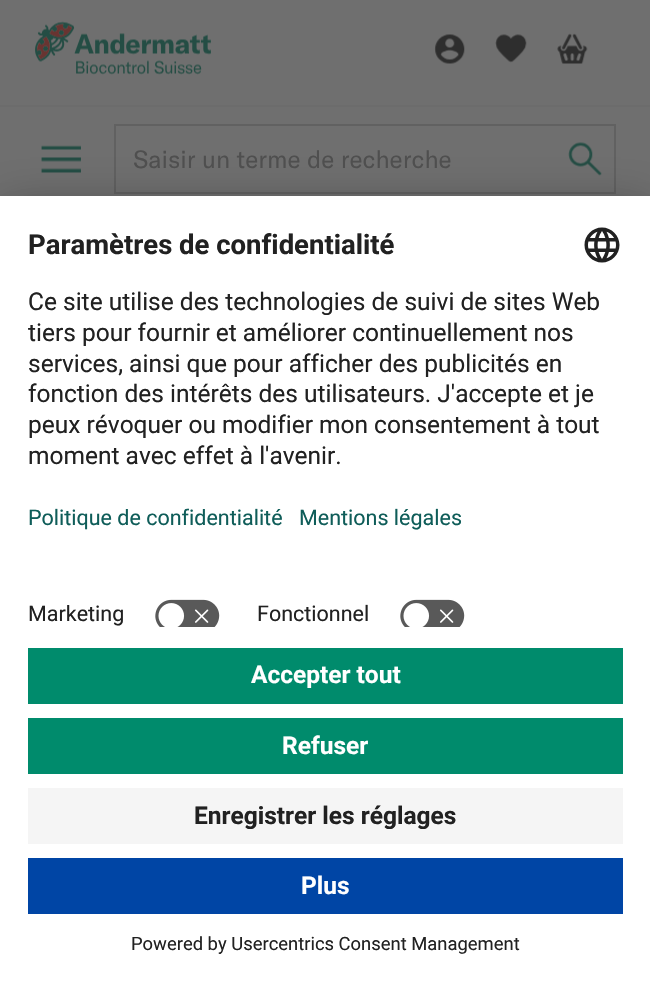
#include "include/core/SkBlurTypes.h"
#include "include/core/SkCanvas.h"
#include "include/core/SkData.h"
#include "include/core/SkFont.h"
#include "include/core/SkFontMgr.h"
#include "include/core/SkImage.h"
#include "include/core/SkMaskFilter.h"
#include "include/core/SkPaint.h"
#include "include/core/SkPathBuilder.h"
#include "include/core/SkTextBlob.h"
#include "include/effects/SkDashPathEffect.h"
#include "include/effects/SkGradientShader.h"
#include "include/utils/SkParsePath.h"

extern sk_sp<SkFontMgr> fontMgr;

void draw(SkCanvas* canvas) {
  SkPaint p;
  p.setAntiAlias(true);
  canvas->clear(SkColorSetRGB(111, 111, 111));
  canvas->drawImageRect(SkImages::DeferredFromEncodedData(SkData::MakeFromFileName("images/1.png")), SkRect::MakeLTRB(35, 21, 211, 75), SkSamplingOptions());
  canvas->drawImageRect(SkImages::DeferredFromEncodedData(SkData::MakeFromFileName("images/2.png")), SkRect::MakeLTRB(434, 34, 465, 64), SkSamplingOptions());
  canvas->drawImageRect(SkImages::DeferredFromEncodedData(SkData::MakeFromFileName("images/3.png")), SkRect::MakeLTRB(495, 34, 527, 63), SkSamplingOptions());
  canvas->drawImageRect(SkImages::DeferredFromEncodedData(SkData::MakeFromFileName("images/4.png")), SkRect::MakeLTRB(557, 33, 588, 64), SkSamplingOptions());
  p.setColor(SkColorSetRGB(108, 108, 108));
  canvas->drawRect(SkRect::MakeLTRB(0, 105, 650, 107), p);
  canvas->drawImageRect(SkImages::DeferredFromEncodedData(SkData::MakeFromFileName("images/5.png")), SkRect::MakeLTRB(41, 145, 81, 173), SkSamplingOptions());
  p.setStyle(SkPaint::kStroke_Style);
  p.setStrokeWidth(2);
  p.setColor(SkColorSetRGB(97, 97, 97));
  canvas->drawRect(SkRect::MakeLTRB(115, 125, 615, 193), p);
  canvas->drawImageRect(SkImages::DeferredFromEncodedData(SkData::MakeFromFileName("images/6.png")), SkRect::MakeLTRB(568, 142, 602, 176), SkSamplingOptions());
  p.setStyle(SkPaint::kFill_Style);
  p.setColor(SkColorSetARGB(77, 0, 0, 0));
  p.setMaskFilter(SkMaskFilter::MakeBlur(kNormal_SkBlurStyle, 24.5f));
  canvas->drawRect(SkRect::MakeLTRB(0, 231, 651, 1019), p);
  p.setMaskFilter(nullptr);
  p.setColor(SkColorSetARGB(56, 0, 0, 0));
  p.setMaskFilter(SkMaskFilter::MakeBlur(kNormal_SkBlurStyle, 23));
  canvas->drawRect(SkRect::MakeLTRB(0, 205, 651, 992), p);
  p.setMaskFilter(nullptr);
  p.setColor(SK_ColorWHITE);
  canvas->drawRect(SkRect::MakeLTRB(0, 196, 650, 983), p);
  canvas->drawImageRect(SkImages::DeferredFromEncodedData(SkData::MakeFromFileName("images/7.png")), SkRect::MakeLTRB(584, 227, 620, 263), SkSamplingOptions());
  canvas->drawImageRect(SkImages::DeferredFromEncodedData(SkData::MakeFromFileName("images/8.png")), SkRect::MakeLTRB(155, 599, 220, 627), SkSamplingOptions());
  canvas->drawImageRect(SkImages::DeferredFromEncodedData(SkData::MakeFromFileName("images/8.png")), SkRect::MakeLTRB(400, 599, 465, 627), SkSamplingOptions());
  p.setColor(SkColorSetRGB(0, 139, 108));
  canvas->drawRect(SkRect::MakeLTRB(28, 648, 623, 704), p);
  canvas->drawRect(SkRect::MakeLTRB(28, 718, 623, 774), p);
  p.setColor(SkColorSetRGB(245, 245, 245));
  canvas->drawRect(SkRect::MakeLTRB(28, 788, 623, 844), p);
  p.setColor(SkColorSetRGB(0, 69, 165));
  canvas->drawRect(SkRect::MakeLTRB(28, 858, 623, 914), p);
  SkFont font1(fontMgr->matchFamilyStyle("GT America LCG", SkFontStyle::Normal()), 24.5f);
  font1.setSubpixel(true);
  p.setColor(SkColorSetRGB(79, 79, 79));
  canvas->drawString("Saisir un terme de recherche", 133, 168, font1, p);
  SkFont font2(fontMgr->matchFamilyStyle("Roboto", SkFontStyle::Bold()), 27.5f);
  font2.setSubpixel(true);
  p.setColor(SkColorSetRGB(33, 33, 33));
  canvas->drawString("Paramètres de confidentialité", 28, 254, font2, p);
  SkFont font3(fontMgr->matchFamilyStyle("Roboto", SkFontStyle::Normal()), 24.5f);
  font3.setSubpixel(true);
  canvas->drawString("Ce site utilise des technologies de suivi de sites Web", 28, 310, font3, p);
  canvas->drawString("tiers pour fournir et améliorer continuellement nos", 28, 341, font3, p);
  canvas->drawString("services, ainsi que pour afficher des publicités en", 28, 372, font3, p);
  canvas->drawString("fonction des intérêts des utilisateurs. J'accepte et je", 28, 402, font3, p);
  canvas->drawString("peux révoquer ou modifier mon consentement à tout", 28, 433, font3, p);
  canvas->drawString("moment avec effet à l'avenir.", 28, 464, font3, p);
  SkFont font4(fontMgr->matchFamilyStyle("Roboto", SkFontStyle::Normal()), 21.5f);
  font4.setSubpixel(true);
  p.setColor(SkColorSetRGB(15, 93, 89));
  canvas->drawString("Politique de confidentialité", 28, 525, font4, p);
  canvas->drawString("Mentions légales", 299, 525, font4, p);
  p.setColor(SkColorSetRGB(33, 33, 33));
  canvas->drawString("Marketing", 28, 621, font4, p);
  canvas->drawString("Fonctionnel", 257, 621, font4, p);
  SkFont font5(fontMgr->matchFamilyStyle("Roboto", SkFontStyle::Bold()), 24.5f);
  font5.setSubpixel(true);
  p.setColor(SK_ColorWHITE);
  canvas->drawString("Accepter tout", 251, 683, font5, p);
  canvas->drawString("Refuser", 282, 754, font5, p);
  p.setColor(SkColorSetRGB(33, 33, 33));
  canvas->drawString("Enregistrer les réglages", 194, 824, font5, p);
  p.setColor(SK_ColorWHITE);
  canvas->drawString("Plus", 301, 894, font5, p);
  SkFont font6(fontMgr->matchFamilyStyle("Roboto", SkFontStyle::Normal()), 18.4f);
  font6.setSubpixel(true);
  p.setColor(SkColorSetRGB(33, 33, 33));
  canvas->drawString("Powered by Usercentrics Consent Management", 131, 950, font6, p);
}
